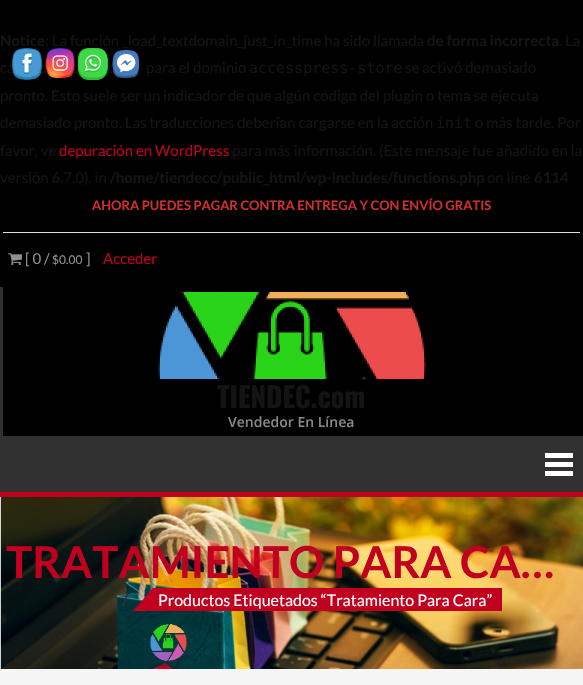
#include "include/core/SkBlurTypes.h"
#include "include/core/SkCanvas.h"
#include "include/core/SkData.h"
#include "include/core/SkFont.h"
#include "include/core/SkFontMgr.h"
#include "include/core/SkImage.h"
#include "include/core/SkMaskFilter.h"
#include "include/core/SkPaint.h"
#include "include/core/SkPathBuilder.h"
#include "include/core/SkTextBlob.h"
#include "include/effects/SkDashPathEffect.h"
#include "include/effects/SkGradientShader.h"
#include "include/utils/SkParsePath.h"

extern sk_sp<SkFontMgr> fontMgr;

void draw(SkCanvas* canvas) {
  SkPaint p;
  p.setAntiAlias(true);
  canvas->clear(SK_ColorBLACK);
  p.setColor(SkColorSetRGB(221, 221, 221));
  canvas->drawRect(SkRect::MakeLTRB(3, 232, 580, 233), p);
  canvas->drawImageRect(SkImages::DeferredFromEncodedData(SkData::MakeFromFileName("images/5.png")), SkRect::MakeLTRB(8, 253, 22, 265), SkSamplingOptions());
  p.setColor(SkColorSetRGB(193, 0, 32));
  canvas->drawRect(SkRect::MakeLTRB(0, 492, 583, 497), p);
  p.setColor(SkColorSetRGB(49, 49, 49));
  canvas->drawRect(SkRect::MakeLTRB(3, 436, 583, 492), p);
  canvas->drawRect(SkRect::MakeLTRB(0, 287, 3, 492), p);
  p.setColor(SK_ColorWHITE);
  canvas->drawRect(SkRect::MakeLTRB(545, 453, 573, 458), p);
  canvas->drawRect(SkRect::MakeLTRB(545, 462, 573, 467), p);
  canvas->drawRect(SkRect::MakeLTRB(545, 471, 573, 476), p);
  canvas->drawImageRect(SkImages::DeferredFromEncodedData(SkData::MakeFromFileName("images/6.png")), SkRect::MakeLTRB(158, 292, 426, 379), SkSamplingOptions());
  canvas->drawImageRect(SkImages::DeferredFromEncodedData(SkData::MakeFromFileName("images/7.png")), SkRect::MakeLTRB(0, 497, 583, 669), SkSamplingOptions());
  p.setColor(SkColorSetRGB(193, 0, 32));
  canvas->drawRect(SkRect::MakeLTRB(153, 588, 502, 611), p);
  canvas->drawPath(SkPathBuilder().moveTo(153, 588).lineTo(153, 611).lineTo(133, 611).close().detach(), p);
  p.setColor(SkColorSetRGB(245, 245, 245));
  canvas->drawRect(SkRect::MakeLTRB(0, 669, 583, 685), p);
  SkFont font1(fontMgr->matchFamilyStyle("Lato", SkFontStyle::Bold()), 15);
  font1.setSubpixel(true);
  p.setColor(SkColorSetRGB(20, 20, 20));
  canvas->drawString("Notice", 0, 46, font1, p);
  SkFont font2(fontMgr->matchFamilyStyle("Lato", SkFontStyle::Normal()), 15);
  font2.setSubpixel(true);
  canvas->drawString(": La función _load_textdomain_just_in_time ha sido llamada", 45, 46, font2, p);
  canvas->drawString("de forma incorrecta", 427, 46, font1, p);
  canvas->drawString(". La", 559, 46, font2, p);
  canvas->drawImageRect(SkImages::DeferredFromEncodedData(SkData::MakeFromFileName("images/3.png")), SkRect::MakeLTRB(78, 48, 108, 80), SkSamplingOptions());
  canvas->drawString("ca", 0, 73, font2, p);
  canvas->drawString("d", 39, 73, font2, p);
  canvas->drawImageRect(SkImages::DeferredFromEncodedData(SkData::MakeFromFileName("images/1.png")), SkRect::MakeLTRB(12, 48, 42, 80), SkSamplingOptions());
  canvas->drawString("t", 72, 73, font2, p);
  canvas->drawImageRect(SkImages::DeferredFromEncodedData(SkData::MakeFromFileName("images/2.png")), SkRect::MakeLTRB(45, 48, 75, 78), SkSamplingOptions());
  canvas->drawString("c", 108, 73, font2, p);
  canvas->drawImageRect(SkImages::DeferredFromEncodedData(SkData::MakeFromFileName("images/4.png")), SkRect::MakeLTRB(112, 50, 140, 78), SkSamplingOptions());
  canvas->drawString("para el dominio", 146, 73, font2, p);
  SkFont font3(fontMgr->matchFamilyStyle("DejaVu Sans Mono", SkFontStyle::Normal()), 15);
  font3.setSubpixel(true);
  canvas->drawString("accesspress-store", 249, 73, font3, p);
  canvas->drawString("se activó demasiado", 405, 73, font2, p);
  canvas->drawString("pronto. Esto suele ser un indicador de que algún código del plugin o tema se ejecuta", 0, 101, font2, p);
  canvas->drawString("demasiado pronto. Las traducciones deberían cargarse en la acción", 0, 128, font2, p);
  canvas->drawString("init", 436, 128, font3, p);
  canvas->drawString("o más tarde. Por", 475, 128, font2, p);
  canvas->drawString("favor, ve", 0, 156, font2, p);
  p.setColor(SkColorSetRGB(193, 0, 32));
  canvas->drawString("depuración en WordPress", 59, 156, font2, p);
  p.setColor(SkColorSetRGB(20, 20, 20));
  canvas->drawString("para más información. (Este mensaje fue añadido en la", 232, 156, font2, p);
  canvas->drawString("versión 6.7.0). in", 0, 183, font2, p);
  canvas->drawString("/home/tiendecc/public_html/wp-includes/functions.php", 110, 183, font1, p);
  canvas->drawString("on line", 487, 183, font2, p);
  canvas->drawString("6114", 534, 183, font1, p);
  SkFont font4(fontMgr->matchFamilyStyle("Lato", SkFontStyle::Bold()), 13);
  font4.setSubpixel(true);
  p.setColor(SkColorSetRGB(207, 46, 46));
  canvas->drawString("AHORA PUEDES PAGAR CONTRA ENTREGA Y CON ENVÍO GRATIS", 92, 210, font4, p);
  p.setColor(SkColorSetRGB(145, 145, 145));
  canvas->drawString("[ 0 /", 25, 264, font2, p);
  SkFont font5(fontMgr->matchFamilyStyle("Lato", SkFontStyle::Normal()), 12);
  font5.setSubpixel(true);
  canvas->drawString("$0.00", 52, 264, font5, p);
  canvas->drawString("]", 86, 264, font2, p);
  p.setColor(SkColorSetRGB(193, 0, 32));
  canvas->drawString("Acceder", 103, 264, font2, p);
  SkFont font6(fontMgr->matchFamilyStyle("Oswald", SkFontStyle::Bold()), 28);
  font6.setSubpixel(true);
  p.setColor(SkColorSetRGB(20, 20, 20));
  canvas->drawString("TIENDEC.com", 217, 408, font6, p);
  SkFont font7(fontMgr->matchFamilyStyle("Open Sans", SkFontStyle(600, SkFontStyle::kNormal_Width, SkFontStyle::kUpright_Slant)), 14);
  font7.setSubpixel(true);
  p.setColor(SkColorSetRGB(136, 136, 136));
  canvas->drawString("Vendedor En Línea", 228, 427, font7, p);
  SkFont font8(fontMgr->matchFamilyStyle("Lato", SkFontStyle::Bold()), 44);
  font8.setSubpixel(true);
  p.setColor(SkColorSetRGB(193, 0, 32));
  canvas->drawString("TRATAMIENTO PARA CA…", 6, 578, font8, p);
  SkFont font9(fontMgr->matchFamilyStyle("Lato", SkFontStyle::Bold()), 16);
  font9.setSubpixel(true);
  p.setColor(SkColorSetRGB(49, 49, 49));
  canvas->drawString("/", 122, 606, font9, p);
  SkFont font10(fontMgr->matchFamilyStyle("Lato", SkFontStyle::Normal()), 16);
  font10.setSubpixel(true);
  p.setColor(SK_ColorWHITE);
  canvas->drawString("Productos Etiquetados “Tratamiento Para Cara”", 158, 606, font10, p);
}
